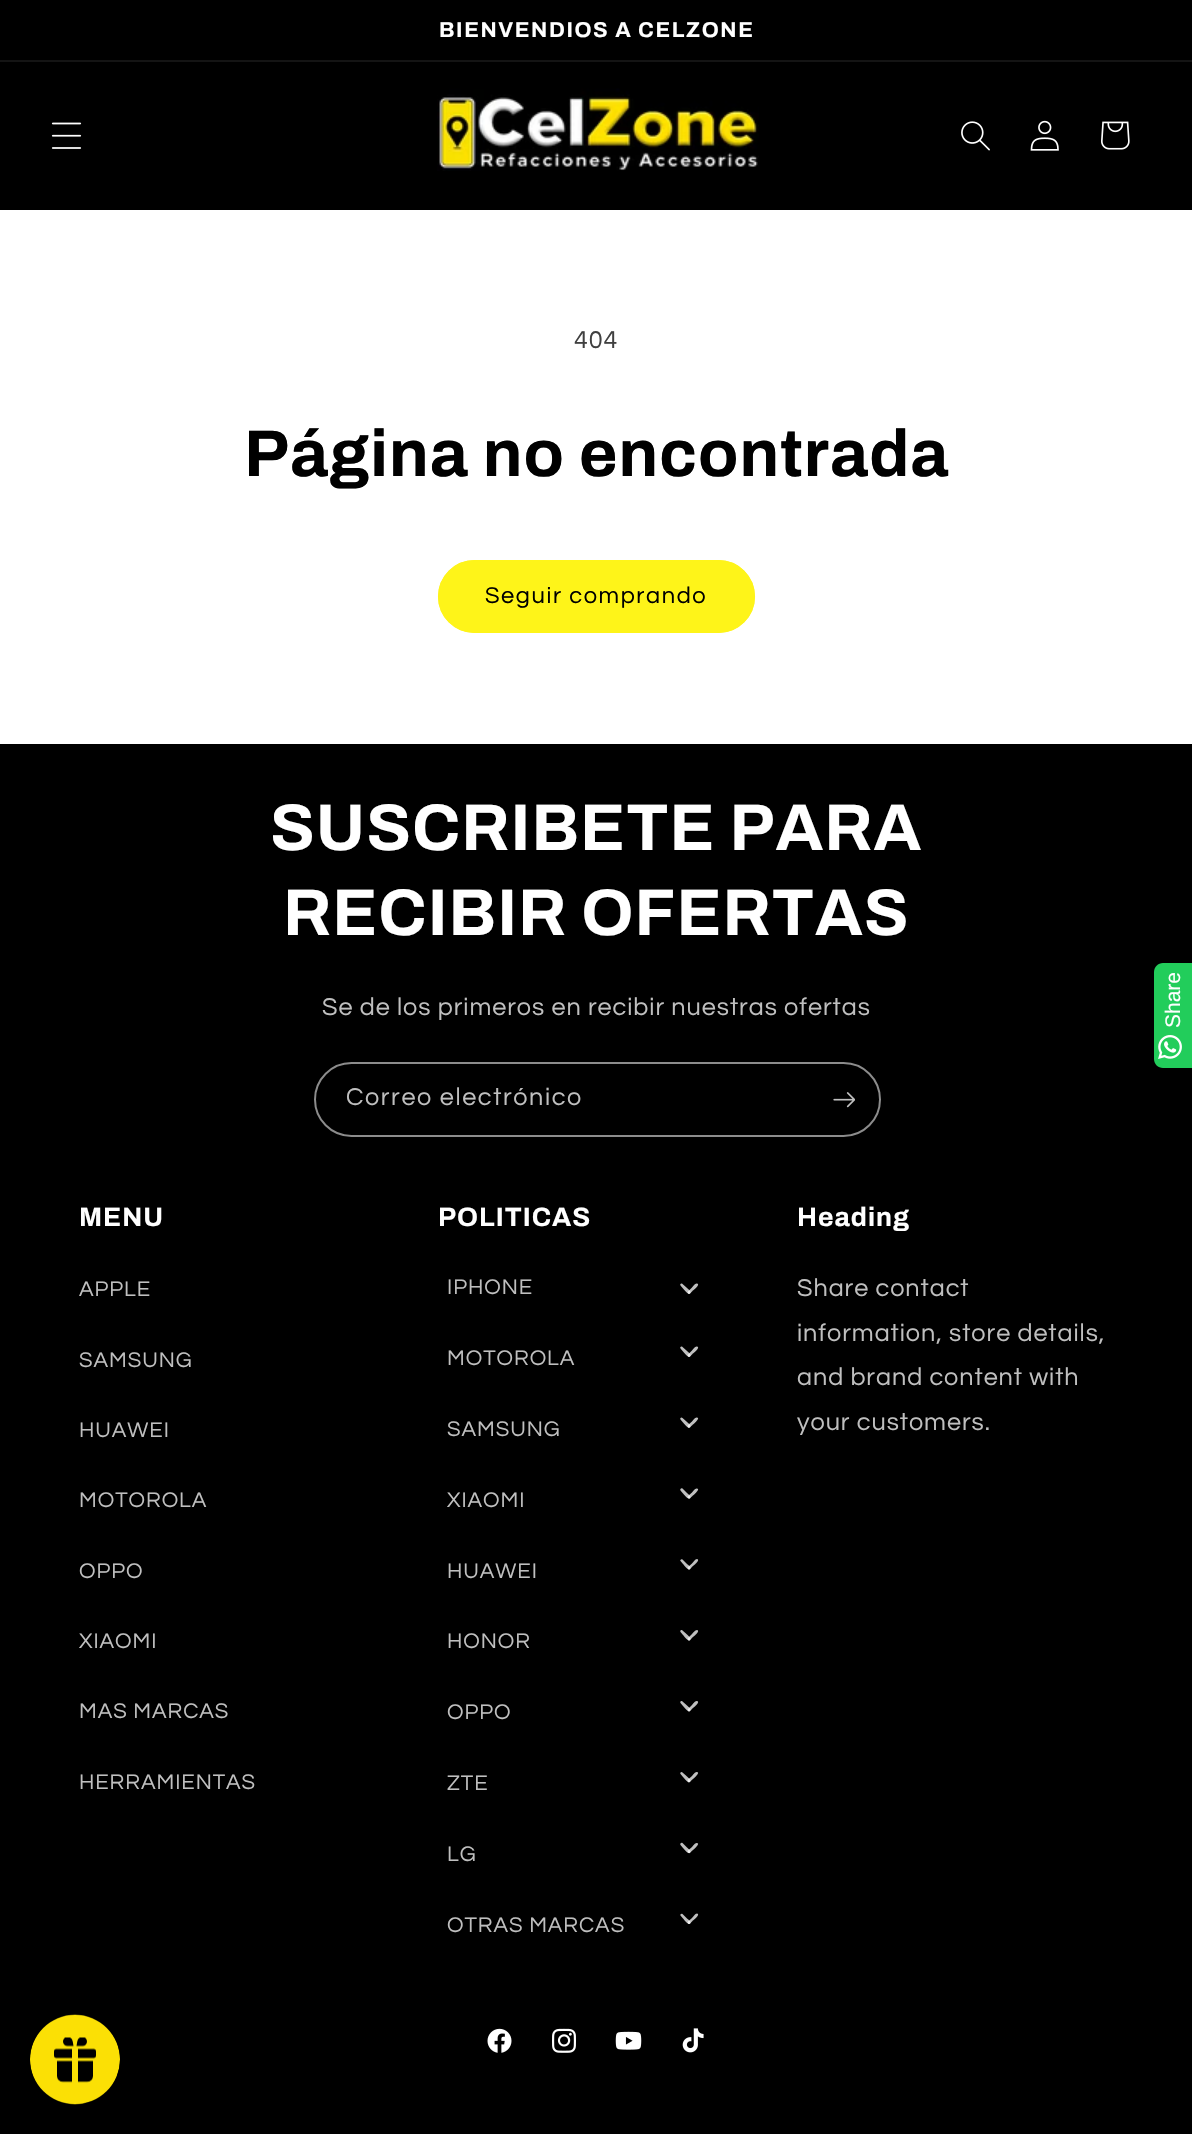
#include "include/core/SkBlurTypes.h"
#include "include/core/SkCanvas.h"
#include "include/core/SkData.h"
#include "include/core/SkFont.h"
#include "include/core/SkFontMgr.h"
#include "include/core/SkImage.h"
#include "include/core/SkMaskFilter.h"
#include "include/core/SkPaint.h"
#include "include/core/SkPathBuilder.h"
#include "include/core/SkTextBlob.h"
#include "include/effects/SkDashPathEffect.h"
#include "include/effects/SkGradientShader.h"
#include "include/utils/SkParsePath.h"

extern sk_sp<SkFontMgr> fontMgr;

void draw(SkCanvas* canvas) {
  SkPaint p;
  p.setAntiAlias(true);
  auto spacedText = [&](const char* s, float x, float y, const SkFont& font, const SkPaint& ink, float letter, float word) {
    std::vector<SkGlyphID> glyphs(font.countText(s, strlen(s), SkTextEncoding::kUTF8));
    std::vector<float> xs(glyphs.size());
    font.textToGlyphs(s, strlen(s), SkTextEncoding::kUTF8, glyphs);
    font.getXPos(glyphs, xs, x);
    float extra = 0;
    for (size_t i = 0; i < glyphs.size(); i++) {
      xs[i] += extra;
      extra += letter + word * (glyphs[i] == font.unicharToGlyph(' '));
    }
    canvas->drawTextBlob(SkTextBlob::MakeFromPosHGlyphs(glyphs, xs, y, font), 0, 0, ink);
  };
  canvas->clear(SK_ColorWHITE);
  p.setColor(SK_ColorBLACK);
  canvas->drawRect(SkRect::MakeLTRB(0, 0, 1192, 60), p);
  p.setColor(SkColorSetRGB(20, 20, 20));
  canvas->drawRect(SkRect::MakeLTRB(0, 60, 1192, 62), p);
  p.setColor(SK_ColorBLACK);
  canvas->drawRect(SkRect::MakeLTRB(0, 62, 1192, 210), p);
  canvas->drawImageRect(SkImages::DeferredFromEncodedData(SkData::MakeFromFileName("images/1.png")), SkRect::MakeLTRB(51, 122, 82, 149), SkSamplingOptions());
  canvas->drawImageRect(SkImages::DeferredFromEncodedData(SkData::MakeFromFileName("images/2.png")), SkRect::MakeLTRB(437, 88, 759, 171), SkSamplingOptions());
  canvas->drawImageRect(SkImages::DeferredFromEncodedData(SkData::MakeFromFileName("images/3.png")), SkRect::MakeLTRB(961, 121, 990, 151), SkSamplingOptions());
  canvas->drawImageRect(SkImages::DeferredFromEncodedData(SkData::MakeFromFileName("images/4.png")), SkRect::MakeLTRB(1030, 120, 1059, 151), SkSamplingOptions());
  canvas->drawImageRect(SkImages::DeferredFromEncodedData(SkData::MakeFromFileName("images/5.png")), SkRect::MakeLTRB(1101, 121, 1130, 150), SkSamplingOptions());
  p.setColor(SkColorSetRGB(254, 244, 25));
  canvas->drawRoundRect(SkRect::MakeLTRB(438, 560, 755, 633), 36.5f, 36.5f, p);
  p.setStyle(SkPaint::kStroke_Style);
  p.setStrokeWidth(2);
  canvas->drawRoundRect(SkRect::MakeLTRB(439, 561, 754, 632), 35.5f, 35.5f, p);
  p.setStyle(SkPaint::kFill_Style);
  p.setColor(SK_ColorBLACK);
  canvas->drawRect(SkRect::MakeLTRB(0, 744, 1192, 2134), p);
  p.setStyle(SkPaint::kStroke_Style);
  p.setColor(SkColorSetRGB(140, 140, 140));
  canvas->drawRoundRect(SkRect::MakeLTRB(315, 1063, 880, 1136), 36.5f, 36.5f, p);
  canvas->drawImageRect(SkImages::DeferredFromEncodedData(SkData::MakeFromFileName("images/6.png")), SkRect::MakeLTRB(833, 1092, 855, 1108), SkSamplingOptions());
  p.setStyle(SkPaint::kFill_Style);
  p.setColor(SkColorSetRGB(34, 205, 91));
  canvas->drawPath(SkPathBuilder().moveTo(1163, 963).lineTo(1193, 963).lineTo(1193, 1068).lineTo(1163, 1068).cubicTo(1158, 1068, 1154, 1064, 1154, 1059).lineTo(1154, 972).cubicTo(1154, 967, 1158, 963, 1163, 963).close().detach(), p);
  canvas->drawImageRect(SkImages::DeferredFromEncodedData(SkData::MakeFromFileName("images/7.png")), SkRect::MakeLTRB(1158, 1035, 1182, 1059), SkSamplingOptions());
  p.setColor(SkColorSetRGB(191, 191, 191));
  canvas->drawPath(SkPathBuilder().moveTo(682.5f, 1284).lineTo(686.5f, 1287.5f).cubicTo(687.5f, 1288.5f, 691, 1291, 690.5f, 1292.5f).cubicTo(689.5f, 1297, 683.5f, 1289, 683, 1288.5f).lineTo(680.5f, 1285.5f).cubicTo(679.5f, 1284, 681.5f, 1283, 682.5f, 1284).close().detach(), p);
  p.setColor(SkColorSetARGB(191, 255, 255, 255));
  canvas->drawPath(SkPathBuilder().moveTo(688, 1291.5f).lineTo(692, 1287.5f).cubicTo(693, 1286.5f, 695, 1283, 697, 1283.5f).cubicTo(701, 1284.5f, 693, 1290.5f, 692.5f, 1291).lineTo(689.5f, 1294).cubicTo(688, 1294.5f, 687, 1292.5f, 688, 1291.5f).close().detach(), p);
  p.setColor(SkColorSetRGB(191, 191, 191));
  canvas->drawPath(SkPathBuilder().moveTo(682.5f, 1347).lineTo(686.5f, 1350.5f).cubicTo(687.5f, 1351.5f, 691, 1354, 690.5f, 1355.5f).cubicTo(689.5f, 1360, 683.5f, 1352, 683, 1351.5f).lineTo(680.5f, 1348.5f).cubicTo(679.5f, 1347, 681.5f, 1346, 682.5f, 1347).close().detach(), p);
  p.setColor(SkColorSetARGB(191, 255, 255, 255));
  canvas->drawPath(SkPathBuilder().moveTo(688, 1354.5f).lineTo(692, 1350.5f).cubicTo(693, 1349.5f, 695, 1346, 697, 1346.5f).cubicTo(701, 1347.5f, 693, 1353.5f, 692.5f, 1354).lineTo(689.5f, 1357).cubicTo(688, 1357.5f, 687, 1355.5f, 688, 1354.5f).close().detach(), p);
  p.setColor(SkColorSetRGB(191, 191, 191));
  canvas->drawPath(SkPathBuilder().moveTo(682.5f, 1418).lineTo(686.5f, 1421.5f).cubicTo(687.5f, 1422.5f, 691, 1425, 690.5f, 1426.5f).cubicTo(689.5f, 1431, 683.5f, 1423, 683, 1422.5f).lineTo(680.5f, 1419.5f).cubicTo(679.5f, 1418, 681.5f, 1416.5f, 682.5f, 1418).close().detach(), p);
  p.setColor(SkColorSetARGB(191, 255, 255, 255));
  canvas->drawPath(SkPathBuilder().moveTo(688, 1425).lineTo(692, 1421.5f).cubicTo(693, 1420.5f, 695, 1417, 697, 1417.5f).cubicTo(701, 1418, 693, 1424.5f, 692.5f, 1425).lineTo(689.5f, 1427.5f).cubicTo(688, 1428.5f, 687, 1426.5f, 688, 1425).close().detach(), p);
  p.setColor(SkColorSetRGB(191, 191, 191));
  canvas->drawPath(SkPathBuilder().moveTo(682.5f, 1488.5f).lineTo(686.5f, 1492.5f).cubicTo(687.5f, 1493.5f, 691, 1496, 690.5f, 1497.5f).cubicTo(689.5f, 1501.5f, 683.5f, 1494, 683, 1493.5f).lineTo(680.5f, 1490.5f).cubicTo(679.5f, 1489, 681.5f, 1487.5f, 682.5f, 1488.5f).close().detach(), p);
  p.setColor(SkColorSetARGB(191, 255, 255, 255));
  canvas->drawPath(SkPathBuilder().moveTo(688, 1496).lineTo(692, 1492.5f).cubicTo(693, 1491.5f, 695, 1488, 697, 1488.5f).cubicTo(701, 1489, 693, 1495.5f, 692.5f, 1496).lineTo(689.5f, 1498.5f).cubicTo(688, 1499, 687, 1497.5f, 688, 1496).close().detach(), p);
  p.setColor(SkColorSetRGB(191, 191, 191));
  canvas->drawPath(SkPathBuilder().moveTo(682.5f, 1559.5f).lineTo(686.5f, 1563.5f).cubicTo(687.5f, 1564.5f, 691, 1566.5f, 690.5f, 1568.5f).cubicTo(689.5f, 1572.5f, 683.5f, 1564.5f, 683, 1564).lineTo(680.5f, 1561).cubicTo(679.5f, 1560, 681.5f, 1558.5f, 682.5f, 1559.5f).close().detach(), p);
  p.setColor(SkColorSetARGB(191, 255, 255, 255));
  canvas->drawPath(SkPathBuilder().moveTo(688, 1567).lineTo(692, 1563.5f).cubicTo(693, 1562.5f, 695, 1559, 697, 1559).cubicTo(701, 1560, 693, 1566, 692.5f, 1566.5f).lineTo(689.5f, 1569.5f).cubicTo(688, 1570, 687, 1568, 688, 1567).close().detach(), p);
  p.setColor(SkColorSetRGB(191, 191, 191));
  canvas->drawPath(SkPathBuilder().moveTo(682.5f, 1630.5f).lineTo(686.5f, 1634).cubicTo(687.5f, 1635, 691, 1637.5f, 690.5f, 1639.5f).cubicTo(689.5f, 1643.5f, 683.5f, 1635.5f, 683, 1635).lineTo(680.5f, 1632).cubicTo(679.5f, 1630.5f, 681.5f, 1629.5f, 682.5f, 1630.5f).close().detach(), p);
  p.setColor(SkColorSetARGB(191, 255, 255, 255));
  canvas->drawPath(SkPathBuilder().moveTo(688, 1638).lineTo(692, 1634).cubicTo(693, 1633, 695, 1630, 697, 1630).cubicTo(701, 1631, 693, 1637, 692.5f, 1637.5f).lineTo(689.5f, 1640.5f).cubicTo(688, 1641, 687, 1639, 688, 1638).close().detach(), p);
  p.setColor(SkColorSetRGB(191, 191, 191));
  canvas->drawPath(SkPathBuilder().moveTo(682.5f, 1701.5f).lineTo(686.5f, 1705).cubicTo(687.5f, 1706, 691, 1708.5f, 690.5f, 1710).cubicTo(689.5f, 1714.5f, 683.5f, 1706.5f, 683, 1706).lineTo(680.5f, 1703).cubicTo(679.5f, 1701.5f, 681.5f, 1700.5f, 682.5f, 1701.5f).close().detach(), p);
  p.setColor(SkColorSetARGB(191, 255, 255, 255));
  canvas->drawPath(SkPathBuilder().moveTo(688, 1709).lineTo(692, 1705).cubicTo(693, 1704, 695, 1700.5f, 697, 1701).cubicTo(701, 1702, 693, 1708, 692.5f, 1708.5f).lineTo(689.5f, 1711.5f).cubicTo(688, 1712, 687, 1710, 688, 1709).close().detach(), p);
  p.setColor(SkColorSetRGB(191, 191, 191));
  canvas->drawPath(SkPathBuilder().moveTo(682.5f, 1772.5f).lineTo(686.5f, 1776).cubicTo(687.5f, 1777, 691, 1779.5f, 690.5f, 1781).cubicTo(689.5f, 1785.5f, 683.5f, 1777.5f, 683, 1777).lineTo(680.5f, 1774).cubicTo(679.5f, 1772.5f, 681.5f, 1771, 682.5f, 1772.5f).close().detach(), p);
  p.setColor(SkColorSetARGB(191, 255, 255, 255));
  canvas->drawPath(SkPathBuilder().moveTo(688, 1779.5f).lineTo(692, 1776).cubicTo(693, 1775, 695, 1771.5f, 697, 1772).cubicTo(701, 1772.5f, 693, 1779, 692.5f, 1779.5f).lineTo(689.5f, 1782).cubicTo(688, 1783, 687, 1781, 688, 1779.5f).close().detach(), p);
  p.setColor(SkColorSetRGB(191, 191, 191));
  canvas->drawPath(SkPathBuilder().moveTo(682.5f, 1843).lineTo(686.5f, 1847).cubicTo(687.5f, 1848, 691, 1850.5f, 690.5f, 1852).cubicTo(689.5f, 1856, 683.5f, 1848.5f, 683, 1848).lineTo(680.5f, 1845).cubicTo(679.5f, 1843.5f, 681.5f, 1842, 682.5f, 1843).close().detach(), p);
  p.setColor(SkColorSetARGB(191, 255, 255, 255));
  canvas->drawPath(SkPathBuilder().moveTo(688, 1850.5f).lineTo(692, 1847).cubicTo(693, 1846, 695, 1842.5f, 697, 1843).cubicTo(701, 1843.5f, 693, 1850, 692.5f, 1850.5f).lineTo(689.5f, 1853).cubicTo(688, 1853.5f, 687, 1852, 688, 1850.5f).close().detach(), p);
  p.setColor(SkColorSetRGB(191, 191, 191));
  canvas->drawPath(SkPathBuilder().moveTo(682.5f, 1914).lineTo(686.5f, 1918).cubicTo(687.5f, 1919, 691, 1921, 690.5f, 1923).cubicTo(689.5f, 1927, 683.5f, 1919, 683, 1918.5f).lineTo(680.5f, 1915.5f).cubicTo(679.5f, 1914.5f, 681.5f, 1913, 682.5f, 1914).close().detach(), p);
  p.setColor(SkColorSetARGB(191, 255, 255, 255));
  canvas->drawPath(SkPathBuilder().moveTo(688, 1921.5f).lineTo(692, 1918).cubicTo(693, 1917, 695, 1913.5f, 697, 1913.5f).cubicTo(701, 1914.5f, 693, 1920.5f, 692.5f, 1921).lineTo(689.5f, 1924).cubicTo(688, 1924.5f, 687, 1922.5f, 688, 1921.5f).close().detach(), p);
  canvas->drawImageRect(SkImages::DeferredFromEncodedData(SkData::MakeFromFileName("images/8.png")), SkRect::MakeLTRB(487, 2028, 512, 2053), SkSamplingOptions());
  canvas->drawImageRect(SkImages::DeferredFromEncodedData(SkData::MakeFromFileName("images/9.png")), SkRect::MakeLTRB(552, 2028, 576, 2053), SkSamplingOptions());
  canvas->drawImageRect(SkImages::DeferredFromEncodedData(SkData::MakeFromFileName("images/10.png")), SkRect::MakeLTRB(615, 2031, 642, 2050), SkSamplingOptions());
  canvas->drawImageRect(SkImages::DeferredFromEncodedData(SkData::MakeFromFileName("images/11.png")), SkRect::MakeLTRB(682, 2028, 704, 2053), SkSamplingOptions());
  canvas->drawImageRect(SkImages::DeferredFromEncodedData(SkData::MakeFromFileName("images/12.png")), SkRect::MakeLTRB(30, 2014, 120, 2105), SkSamplingOptions());
  SkFont font1(fontMgr->matchFamilyStyle("Archivo", SkFontStyle::Bold()), 21.5f);
  font1.setSubpixel(true);
  p.setColor(SK_ColorWHITE);
  spacedText("BIENVENDIOS A CELZONE", 439, 37, font1, p, 1.6f, 0);
  SkFont font2(fontMgr->matchFamilyStyle("Questrial", SkFontStyle::Normal()), 25.2f);
  font2.setSubpixel(true);
  p.setColor(SkColorSetRGB(64, 64, 64));
  spacedText("404", 574, 348, font2, p, 0.95f, 0);
  SkFont font3(fontMgr->matchFamilyStyle("Archivo", SkFontStyle::Bold()), 66);
  font3.setSubpixel(true);
  p.setColor(SK_ColorBLACK);
  spacedText("Página no encontrada", 244, 476, font3, p, 1, 0);
  SkFont font4(fontMgr->matchFamilyStyle("Questrial", SkFontStyle::Normal()), 23.6f);
  font4.setSubpixel(true);
  spacedText("Seguir comprando", 485, 603, font4, p, 1.6f, 0);
  p.setColor(SK_ColorWHITE);
  spacedText("SUSCRIBETE PARA", 270, 850, font3, p, 1, 0);
  spacedText("RECIBIR OFERTAS", 283, 935, font3, p, 1, 0);
  p.setColor(SkColorSetRGB(191, 191, 191));
  spacedText("Se de los primeros en recibir nuestras ofertas", 322, 1015, font2, p, 0.95f, 0);
  spacedText("Correo electrónico", 346, 1105, font2, p, 1.6f, 0);
  SkFont font5(fontMgr->matchFamilyStyle("Liberation Sans", SkFontStyle::Normal()), 21);
  font5.setSubpixel(true);
  p.setColor(SK_ColorWHITE);
  canvas->save();
  canvas->rotate(-90, 1180, 1028);
  canvas->drawString("Share", 1180, 1028, font5, p);
  canvas->restore();
  SkFont font6(fontMgr->matchFamilyStyle("Archivo", SkFontStyle::Bold()), 26.5f);
  font6.setSubpixel(true);
  spacedText("MENU", 79, 1226, font6, p, 1, 0);
  SkFont font7(fontMgr->matchFamilyStyle("Questrial", SkFontStyle::Normal()), 22);
  font7.setSubpixel(true);
  p.setColor(SkColorSetRGB(191, 191, 191));
  spacedText("APPLE", 79, 1296, font7, p, 0.95f, 0);
  spacedText("SAMSUNG", 79, 1367, font7, p, 0.95f, 0);
  spacedText("HUAWEI", 79, 1437, font7, p, 0.95f, 0);
  spacedText("MOTOROLA", 79, 1507, font7, p, 0.95f, 0);
  spacedText("OPPO", 79, 1578, font7, p, 0.95f, 0);
  spacedText("XIAOMI", 79, 1648, font7, p, 0.95f, 0);
  spacedText("MAS MARCAS", 79, 1718, font7, p, 0.95f, 0);
  spacedText("HERRAMIENTAS", 79, 1789, font7, p, 0.95f, 0);
  p.setColor(SK_ColorWHITE);
  spacedText("POLITICAS", 438, 1226, font6, p, 1, 0);
  p.setColor(SkColorSetRGB(191, 191, 191));
  spacedText("IPHONE", 447, 1294, font7, p, 0.95f, 0);
  spacedText("MOTOROLA", 447, 1365, font7, p, 0.95f, 0);
  spacedText("SAMSUNG", 447, 1436, font7, p, 0.95f, 0);
  spacedText("XIAOMI", 447, 1507, font7, p, 0.95f, 0);
  spacedText("HUAWEI", 447, 1578, font7, p, 0.95f, 0);
  spacedText("HONOR", 447, 1648, font7, p, 0.95f, 0);
  spacedText("OPPO", 447, 1719, font7, p, 0.95f, 0);
  spacedText("ZTE", 447, 1790, font7, p, 0.95f, 0);
  spacedText("LG", 447, 1861, font7, p, 0.95f, 0);
  spacedText("OTRAS MARCAS", 447, 1932, font7, p, 0.95f, 0);
  p.setColor(SK_ColorWHITE);
  spacedText("Heading", 797, 1226, font6, p, 1, 0);
  p.setColor(SkColorSetRGB(191, 191, 191));
  spacedText("Share contact", 797, 1296, font2, p, 0.95f, 0);
  spacedText("information, store details,", 797, 1341, font2, p, 0.95f, 0);
  spacedText("and brand content with", 797, 1385, font2, p, 0.95f, 0);
  spacedText("your customers.", 797, 1430, font2, p, 0.95f, 0);
}
